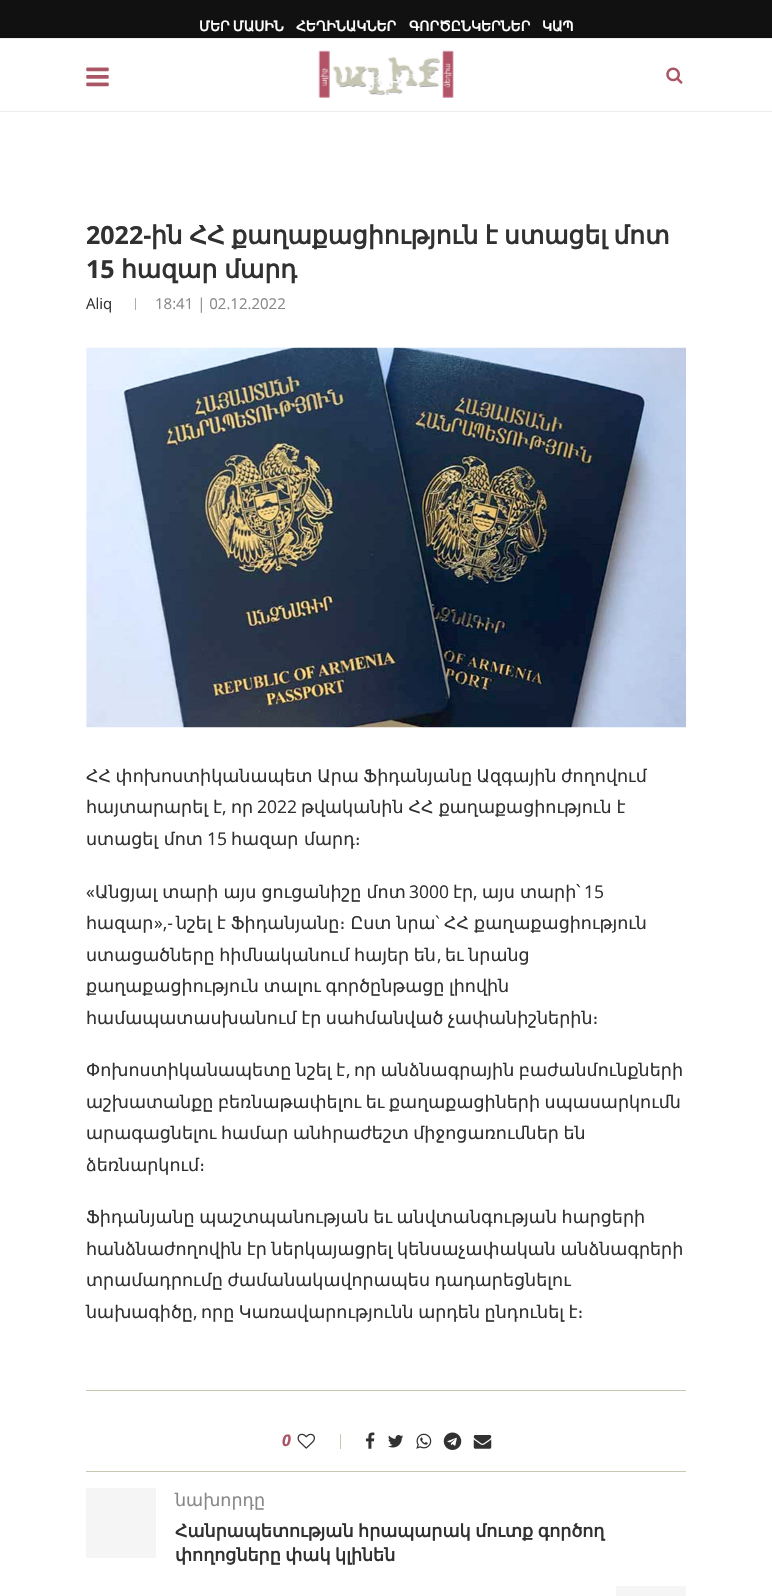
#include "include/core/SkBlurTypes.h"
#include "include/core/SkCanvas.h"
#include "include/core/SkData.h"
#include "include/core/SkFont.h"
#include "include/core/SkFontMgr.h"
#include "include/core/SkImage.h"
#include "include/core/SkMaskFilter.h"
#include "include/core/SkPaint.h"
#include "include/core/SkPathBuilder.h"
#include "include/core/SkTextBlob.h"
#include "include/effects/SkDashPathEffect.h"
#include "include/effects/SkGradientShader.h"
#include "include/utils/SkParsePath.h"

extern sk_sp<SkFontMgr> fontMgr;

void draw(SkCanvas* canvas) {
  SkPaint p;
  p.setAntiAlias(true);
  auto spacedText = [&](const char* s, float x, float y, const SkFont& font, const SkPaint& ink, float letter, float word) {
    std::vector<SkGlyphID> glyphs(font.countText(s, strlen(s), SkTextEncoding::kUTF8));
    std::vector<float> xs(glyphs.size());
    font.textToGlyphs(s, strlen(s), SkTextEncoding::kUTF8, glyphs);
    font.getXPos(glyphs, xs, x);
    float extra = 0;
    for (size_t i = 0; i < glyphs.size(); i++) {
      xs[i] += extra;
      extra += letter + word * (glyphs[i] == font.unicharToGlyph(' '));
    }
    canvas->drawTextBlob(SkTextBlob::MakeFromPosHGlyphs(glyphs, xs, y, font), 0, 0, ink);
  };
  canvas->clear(SK_ColorWHITE);
  p.setColor(SkColorSetRGB(17, 17, 17));
  canvas->drawRect(SkRect::MakeLTRB(0, 0, 772, 38), p);
  p.setColor(SkColorSetRGB(236, 236, 236));
  canvas->drawRect(SkRect::MakeLTRB(0, 38, 772, 39), p);
  canvas->drawRect(SkRect::MakeLTRB(0, 111, 772, 112), p);
  canvas->drawImageRect(SkImages::DeferredFromEncodedData(SkData::MakeFromFileName("images/1.png")), SkRect::MakeLTRB(86, 67, 109, 87), SkSamplingOptions());
  canvas->drawImageRect(SkImages::DeferredFromEncodedData(SkData::MakeFromFileName("images/2.png")), SkRect::MakeLTRB(318, 50, 454, 98), SkSamplingOptions());
  canvas->drawImageRect(SkImages::DeferredFromEncodedData(SkData::MakeFromFileName("images/3.png")), SkRect::MakeLTRB(666, 67, 683, 84), SkSamplingOptions());
  p.setColor(SkColorSetRGB(172, 172, 172));
  canvas->drawRect(SkRect::MakeLTRB(135, 298, 136, 310), p);
  canvas->drawImageRect(SkImages::DeferredFromEncodedData(SkData::MakeFromFileName("images/4.png")), SkRect::MakeLTRB(86, 347, 687, 728), SkSamplingOptions());
  p.setColor(SkColorSetRGB(201, 199, 178));
  canvas->drawRect(SkRect::MakeLTRB(86, 1390, 686, 1391), p);
  canvas->drawImageRect(SkImages::DeferredFromEncodedData(SkData::MakeFromFileName("images/5.png")), SkRect::MakeLTRB(297, 1433, 315, 1449), SkSamplingOptions());
  canvas->drawRect(SkRect::MakeLTRB(340, 1434, 341, 1449), p);
  canvas->drawImageRect(SkImages::DeferredFromEncodedData(SkData::MakeFromFileName("images/6.png")), SkRect::MakeLTRB(365, 1432, 375, 1449), SkSamplingOptions());
  canvas->drawImageRect(SkImages::DeferredFromEncodedData(SkData::MakeFromFileName("images/7.png")), SkRect::MakeLTRB(388, 1435, 404, 1448), SkSamplingOptions());
  canvas->drawImageRect(SkImages::DeferredFromEncodedData(SkData::MakeFromFileName("images/8.png")), SkRect::MakeLTRB(416, 1433, 432, 1449), SkSamplingOptions());
  canvas->drawImageRect(SkImages::DeferredFromEncodedData(SkData::MakeFromFileName("images/9.png")), SkRect::MakeLTRB(443, 1432, 462, 1450), SkSamplingOptions());
  canvas->drawImageRect(SkImages::DeferredFromEncodedData(SkData::MakeFromFileName("images/10.png")), SkRect::MakeLTRB(473, 1435, 492, 1449), SkSamplingOptions());
  canvas->drawRect(SkRect::MakeLTRB(86, 1471, 686, 1472), p);
  p.setColor(SkColorSetRGB(245, 245, 245));
  canvas->drawRect(SkRect::MakeLTRB(86, 1488, 156, 1558), p);
  canvas->drawRect(SkRect::MakeLTRB(616, 1586, 686, 1596), p);
  SkFont font1(fontMgr->matchFamilyStyle("DejaVu Sans", SkFontStyle::Bold()), 13.75f);
  font1.setSubpixel(true);
  p.setColor(SK_ColorWHITE);
  spacedText("ՄԵՐ ՄԱՍԻՆ", 199, 31, font1, p, 0, -1);
  canvas->drawString("ՀԵՂԻՆԱԿՆԵՐ", 296, 31, font1, p);
  canvas->drawString("ԳՈՐԾԸՆԿԵՐՆԵՐ", 409, 31, font1, p);
  canvas->drawString("ԿԱՊ", 542, 31, font1, p);
  SkFont font2(fontMgr->matchFamilyStyle("Open Sans", SkFontStyle::Bold()), 25);
  font2.setSubpixel(true);
  p.setColor(SkColorSetRGB(49, 49, 49));
  canvas->drawString("2022-", 86, 244, font2, p);
  SkFont font3(fontMgr->matchFamilyStyle("DejaVu Sans", SkFontStyle::Bold()), 25);
  font3.setSubpixel(true);
  spacedText("ին ՀՀ քաղաքացիություն է ստացել մոտ", 151, 244, font3, p, 0, -1.5f);
  canvas->drawString("15", 86, 278, font2, p);
  spacedText("հազար մարդ", 121, 278, font3, p, 0, -1);
  SkFont font4(fontMgr->matchFamilyStyle("Open Sans", SkFontStyle::Normal()), 15);
  font4.setSubpixel(true);
  canvas->drawString("Aliq", 86, 309, font4, p);
  p.setColor(SkColorSetRGB(136, 136, 136));
  canvas->drawString("18:41 | 02.12.2022", 155, 309, font4, p);
  SkFont font5(fontMgr->matchFamilyStyle("DejaVu Sans", SkFontStyle::Normal()), 17.5f);
  font5.setSubpixel(true);
  p.setColor(SkColorSetRGB(49, 49, 49));
  spacedText("ՀՀ փոխոստիկանապետ Արա Ֆիդանյանը Ազգային ժողովում", 86, 782, font5, p, 0, -1);
  spacedText("հայտարարել է", 86, 813, font5, p, 0, -0.5f);
  SkFont font6(fontMgr->matchFamilyStyle("Open Sans", SkFontStyle::Normal()), 17.5f);
  font6.setSubpixel(true);
  canvas->drawString(",", 222, 813, font6, p);
  canvas->drawString("որ", 231, 813, font5, p);
  canvas->drawString("2022", 257, 813, font6, p);
  spacedText("թվականին ՀՀ քաղաքացիություն է", 301, 813, font5, p, 0, -0.5f);
  canvas->drawString("ստացել մոտ", 86, 845, font5, p);
  canvas->drawString("15", 207, 845, font6, p);
  canvas->drawString("հազար մարդ։", 231, 845, font5, p);
  canvas->drawString("«", 86, 898, font6, p);
  spacedText("Անցյալ տարի այս ցուցանիշը մոտ", 95, 898, font5, p, 0, -0.5f);
  canvas->drawString("3000", 409, 898, font6, p);
  canvas->drawString("էր", 453, 898, font5, p);
  spacedText("այս տարի՝", 482, 898, font5, p, 0, -0.5f);
  canvas->drawString("15", 584, 898, font6, p);
  canvas->drawString(",", 473, 898, font6, p);
  canvas->drawString("հազար", 86, 929, font5, p);
  canvas->drawString("»,-", 154, 929, font6, p);
  spacedText("նշել է Ֆիդանյանը։ Ըստ նրա", 176, 929, font5, p, 0, -0.5f);
  canvas->drawString("`", 435, 929, font6, p);
  spacedText("ՀՀ քաղաքացիություն", 444, 929, font5, p, 0, -0.5f);
  spacedText("ստացածները հիմնականում հայեր են", 86, 961, font5, p, 0, -1);
  canvas->drawString(",", 437, 961, font6, p);
  spacedText("եւ նրանց", 445, 961, font5, p, 0, -1);
  spacedText("քաղաքացիություն տալու գործընթացը լիովին", 86, 992, font5, p, 0, -1);
  spacedText("համապատասխանում էր սահմանված չափանիշներին։", 86, 1024, font5, p, 0, -1);
  spacedText("Փոխոստիկանապետը նշել է", 86, 1076, font5, p, 0, -1);
  canvas->drawString(",", 346, 1076, font6, p);
  spacedText("որ անձնագրային բաժանմունքների", 354, 1076, font5, p, 0, -1);
  spacedText("աշխատանքը բեռնաթափելու եւ քաղաքացիների սպասարկումն", 86, 1108, font5, p, 0, -1);
  spacedText("արագացնելու համար անհրաժեշտ միջոցառումներ են", 86, 1139, font5, p, 0, -1);
  canvas->drawString("ձեռնարկում։", 86, 1171, font5, p);
  spacedText("Ֆիդանյանը պաշտպանության եւ անվտանգության հարցերի", 86, 1223, font5, p, 0, -1);
  spacedText("հանձնաժողովին էր ներկայացրել կենսաչափական անձնագրերի", 86, 1255, font5, p, 0, -1);
  spacedText("տրամադրումը ժամանակավորապես դադարեցնելու", 86, 1286, font5, p, 0, -1);
  canvas->drawString("նախագիծը", 86, 1318, font5, p);
  canvas->drawString(",", 193, 1318, font6, p);
  spacedText("որը Կառավարությունն արդեն ընդունել է։", 201, 1318, font5, p, 0, -1);
  SkFont font7(fontMgr->matchFamilyStyle("Open Sans", SkFontStyle::BoldItalic()), 16);
  font7.setSubpixel(true);
  p.setColor(SkColorSetRGB(171, 86, 103));
  canvas->drawString("0", 282, 1446, font7, p);
  p.setColor(SkColorSetRGB(136, 136, 136));
  canvas->drawString("նախորդը", 175, 1506, font5, p);
  SkFont font8(fontMgr->matchFamilyStyle("DejaVu Sans", SkFontStyle::Bold()), 17.5f);
  font8.setSubpixel(true);
  p.setColor(SkColorSetRGB(49, 49, 49));
  spacedText("Հանրապետության հրապարակ մուտք գործող", 175, 1537, font8, p, 0, -1);
  spacedText("փողոցները փակ կլինեն", 175, 1561, font8, p, 0, -1);
}
